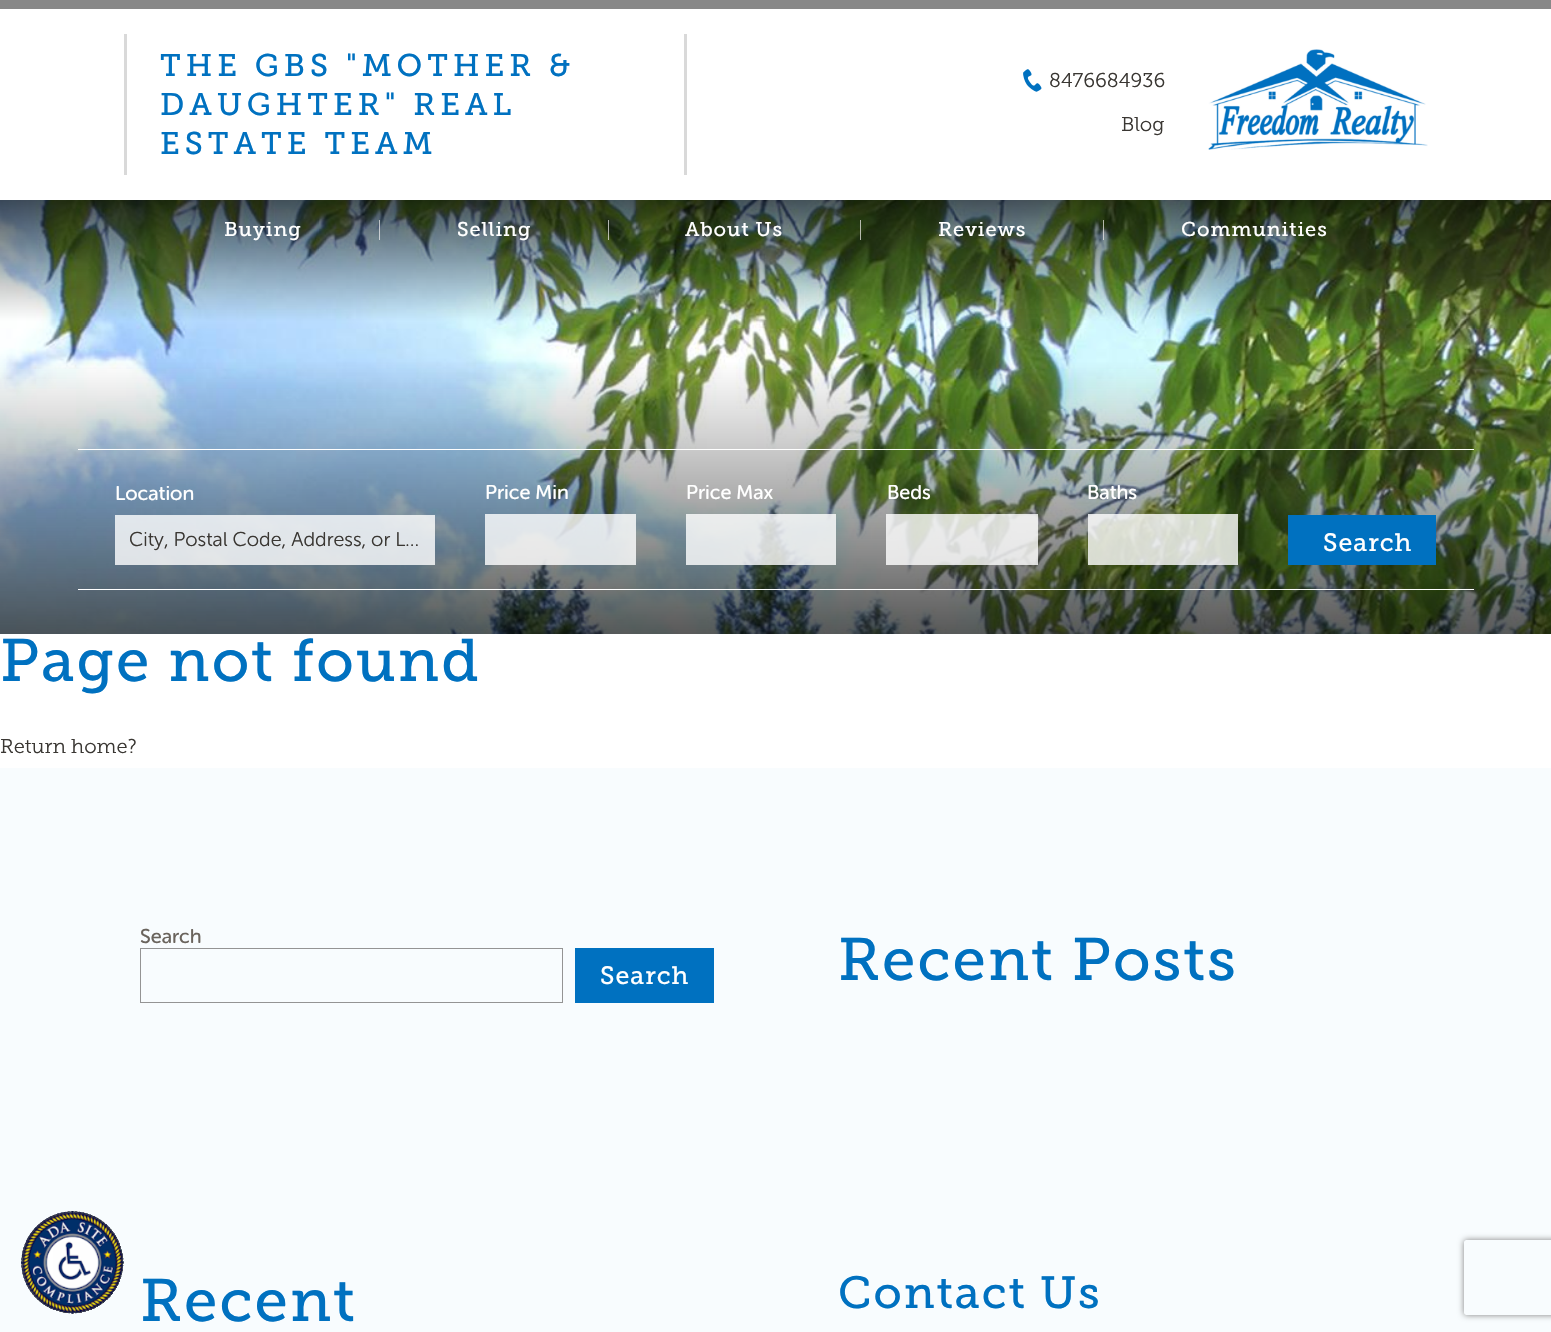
#include "include/core/SkBlurTypes.h"
#include "include/core/SkCanvas.h"
#include "include/core/SkData.h"
#include "include/core/SkFont.h"
#include "include/core/SkFontMgr.h"
#include "include/core/SkImage.h"
#include "include/core/SkMaskFilter.h"
#include "include/core/SkPaint.h"
#include "include/core/SkPathBuilder.h"
#include "include/core/SkTextBlob.h"
#include "include/effects/SkDashPathEffect.h"
#include "include/effects/SkGradientShader.h"
#include "include/utils/SkParsePath.h"

extern sk_sp<SkFontMgr> fontMgr;

void draw(SkCanvas* canvas) {
  SkPaint p;
  p.setAntiAlias(true);
  auto spacedText = [&](const char* s, float x, float y, const SkFont& font, const SkPaint& ink, float letter, float word) {
    std::vector<SkGlyphID> glyphs(font.countText(s, strlen(s), SkTextEncoding::kUTF8));
    std::vector<float> xs(glyphs.size());
    font.textToGlyphs(s, strlen(s), SkTextEncoding::kUTF8, glyphs);
    font.getXPos(glyphs, xs, x);
    float extra = 0;
    for (size_t i = 0; i < glyphs.size(); i++) {
      xs[i] += extra;
      extra += letter + word * (glyphs[i] == font.unicharToGlyph(' '));
    }
    canvas->drawTextBlob(SkTextBlob::MakeFromPosHGlyphs(glyphs, xs, y, font), 0, 0, ink);
  };
  canvas->clear(SK_ColorWHITE);
  p.setColor(SkColorSetRGB(136, 136, 136));
  canvas->drawRect(SkRect::MakeLTRB(0, 0, 1551, 9), p);
  p.setColor(SkColorSetRGB(217, 217, 217));
  canvas->drawRect(SkRect::MakeLTRB(684, 34, 687, 175), p);
  canvas->drawRect(SkRect::MakeLTRB(124, 34, 127, 175), p);
  canvas->drawImageRect(SkImages::DeferredFromEncodedData(SkData::MakeFromFileName("images/1.png")), SkRect::MakeLTRB(1023, 69, 1042, 92), SkSamplingOptions());
  canvas->drawImageRect(SkImages::DeferredFromEncodedData(SkData::MakeFromFileName("images/2.png")), SkRect::MakeLTRB(1208, 49, 1428, 150), SkSamplingOptions());
  p.setColor(SkColorSetRGB(248, 252, 254));
  canvas->drawRect(SkRect::MakeLTRB(0, 768, 1551, 1332), p);
  p.setStyle(SkPaint::kStroke_Style);
  p.setStrokeWidth(1);
  p.setColor(SkColorSetRGB(148, 148, 148));
  canvas->drawRect(SkRect::MakeLTRB(140.5f, 948.5f, 562.5f, 1002.5f), p);
  p.setStyle(SkPaint::kFill_Style);
  p.setColor(SkColorSetRGB(0, 113, 192));
  canvas->drawRect(SkRect::MakeLTRB(575, 948, 714, 1003), p);
  SkFont font1(fontMgr->matchFamilyStyle("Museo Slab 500", SkFontStyle::Normal()), 31.25f);
  font1.setSubpixel(true);
  spacedText("THE GBS \"MOTHER &", 160, 76, font1, p, 5, 0);
  spacedText("DAUGHTER\" REAL", 160, 115, font1, p, 5, 0);
  spacedText("ESTATE TEAM", 160, 154, font1, p, 5, 0);
  SkFont font2(fontMgr->matchFamilyStyle("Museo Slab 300", SkFontStyle(300, SkFontStyle::kNormal_Width, SkFontStyle::kUpright_Slant)), 20);
  font2.setSubpixel(true);
  p.setColor(SkColorSetRGB(58, 55, 51));
  canvas->drawString("8476684936", 1049, 87, font2, p);
  canvas->drawString("Blog", 1121, 131, font2, p);
  SkFont font3(fontMgr->matchFamilyStyle("Museo Slab 500", SkFontStyle::Normal()), 60);
  font3.setSubpixel(true);
  p.setColor(SkColorSetRGB(0, 113, 192));
  spacedText("Page not found", 0, 681, font3, p, 2, 0);
  p.setColor(SkColorSetRGB(58, 55, 51));
  canvas->drawString("Return home?", 0, 753, font2, p);
  SkFont font4(fontMgr->matchFamilyStyle("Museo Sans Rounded", SkFontStyle::Normal()), 20);
  font4.setSubpixel(true);
  p.setColor(SkColorSetRGB(106, 100, 93));
  canvas->drawString("Search", 140, 943, font4, p);
  SkFont font5(fontMgr->matchFamilyStyle("Museo Slab 500", SkFontStyle::Normal()), 25);
  font5.setSubpixel(true);
  p.setColor(SK_ColorWHITE);
  spacedText("Search", 600, 984, font5, p, 1, 0);
  p.setColor(SkColorSetRGB(0, 113, 192));
  spacedText("Recent Posts", 838, 980, font3, p, 2, 0);
  spacedText("Recent", 140, 1321, font3, p, 2, 0);
  SkFont font6(fontMgr->matchFamilyStyle("Museo Slab 500", SkFontStyle::Normal()), 45);
  font6.setSubpixel(true);
  spacedText("Contact Us", 838, 1308, font6, p, 2, 0);
  canvas->drawImageRect(SkImages::DeferredFromEncodedData(SkData::MakeFromFileName("images/3.png")), SkRect::MakeLTRB(0, 200, 1551, 1314), SkSamplingOptions());
  SkFont font7(fontMgr->matchFamilyStyle("Museo Slab 500", SkFontStyle::Normal()), 20);
  font7.setSubpixel(true);
  p.setColor(SK_ColorWHITE);
  spacedText("Communities", 1181, 236, font7, p, 1, 0);
  spacedText("Reviews", 938, 236, font7, p, 1, 0);
  p.setColor(SkColorSetARGB(179, 243, 241, 241));
  canvas->drawRect(SkRect::MakeLTRB(1103, 220, 1104, 240), p);
  p.setColor(SK_ColorWHITE);
  spacedText("About Us", 685, 236, font7, p, 1, 0);
  p.setColor(SkColorSetARGB(179, 243, 241, 241));
  canvas->drawRect(SkRect::MakeLTRB(860, 220, 861, 240), p);
  p.setColor(SK_ColorWHITE);
  spacedText("Selling", 457, 236, font7, p, 1, 0);
  p.setColor(SkColorSetARGB(179, 243, 241, 241));
  canvas->drawRect(SkRect::MakeLTRB(608, 220, 609, 240), p);
  p.setColor(SK_ColorWHITE);
  spacedText("Buying", 224, 236, font7, p, 1, 0);
  p.setColor(SkColorSetARGB(179, 243, 241, 241));
  canvas->drawRect(SkRect::MakeLTRB(379, 220, 380, 240), p);
  p.setColor(SK_ColorWHITE);
  canvas->drawString("Baths", 1087, 499, font4, p);
  p.setColor(SkColorSetARGB(204, 255, 255, 255));
  canvas->drawRect(SkRect::MakeLTRB(1088, 514, 1238, 565), p);
  p.setColor(SK_ColorWHITE);
  canvas->drawString("Beds", 887, 499, font4, p);
  p.setColor(SkColorSetARGB(204, 255, 255, 255));
  canvas->drawRect(SkRect::MakeLTRB(886, 514, 1038, 565), p);
  p.setColor(SK_ColorWHITE);
  canvas->drawString("Price Max", 686, 499, font4, p);
  p.setColor(SkColorSetARGB(204, 255, 255, 255));
  canvas->drawRect(SkRect::MakeLTRB(686, 514, 836, 565), p);
  p.setColor(SK_ColorWHITE);
  canvas->drawString("Price Min", 485, 499, font4, p);
  p.setColor(SkColorSetARGB(204, 255, 255, 255));
  canvas->drawRect(SkRect::MakeLTRB(485, 514, 636, 565), p);
  p.setColor(SK_ColorWHITE);
  canvas->drawString("Location", 115, 500, font4, p);
  p.setColor(SkColorSetARGB(204, 255, 255, 255));
  canvas->drawRect(SkRect::MakeLTRB(115, 515, 435, 565), p);
  SkFont font8(fontMgr->matchFamilyStyle("Museo Sans Rounded", SkFontStyle(300, SkFontStyle::kNormal_Width, SkFontStyle::kUpright_Slant)), 20);
  font8.setSubpixel(true);
  p.setColor(SkColorSetRGB(58, 55, 51));
  canvas->drawString("City, Postal Code, Address, or L…", 129, 546, font8, p);
  p.setColor(SkColorSetRGB(0, 113, 192));
  canvas->drawRect(SkRect::MakeLTRB(1288, 515, 1436, 565), p);
  p.setColor(SK_ColorWHITE);
  spacedText("Search", 1323, 551, font5, p, 1, 0);
  canvas->drawRect(SkRect::MakeLTRB(78, 589, 1474, 590), p);
  canvas->drawRect(SkRect::MakeLTRB(78, 449, 1474, 450), p);
  canvas->drawImageRect(SkImages::DeferredFromEncodedData(SkData::MakeFromFileName("images/4.png")), SkRect::MakeLTRB(21, 1211, 124, 1314), SkSamplingOptions());
  canvas->drawImageRect(SkImages::DeferredFromEncodedData(SkData::MakeFromFileName("images/5.png")), SkRect::MakeLTRB(21, 1211, 124, 1314), SkSamplingOptions());
  canvas->drawImageRect(SkImages::DeferredFromEncodedData(SkData::MakeFromFileName("images/6.png")), SkRect::MakeLTRB(21, 1211, 124, 1314), SkSamplingOptions());
  canvas->drawImageRect(SkImages::DeferredFromEncodedData(SkData::MakeFromFileName("images/7.png")), SkRect::MakeLTRB(21, 1211, 124, 1314), SkSamplingOptions());
  canvas->drawImageRect(SkImages::DeferredFromEncodedData(SkData::MakeFromFileName("images/8.png")), SkRect::MakeLTRB(21, 1211, 124, 1314), SkSamplingOptions());
  canvas->save();
  canvas->clipPath(SkPathBuilder(SkPathFillType::kEvenOdd).moveTo(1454, 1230).lineTo(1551, 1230).lineTo(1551, 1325).lineTo(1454, 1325).close().moveTo(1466.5f, 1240).lineTo(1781.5f, 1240).cubicTo(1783, 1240, 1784, 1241, 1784, 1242.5f).lineTo(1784, 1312.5f).cubicTo(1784, 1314, 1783, 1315, 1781.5f, 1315).lineTo(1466.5f, 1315).cubicTo(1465, 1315, 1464, 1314, 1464, 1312.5f).lineTo(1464, 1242.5f).cubicTo(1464, 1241, 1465, 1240, 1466.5f, 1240).close().detach(), true);
  p.setColor(SkColorSetRGB(128, 128, 128));
  p.setMaskFilter(SkMaskFilter::MakeBlur(kNormal_SkBlurStyle, 3));
  canvas->drawRoundRect(SkRect::MakeLTRB(1464, 1240, 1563, 1315), 2.5f, 2.5f, p);
  p.setMaskFilter(nullptr);
  canvas->restore();
}
